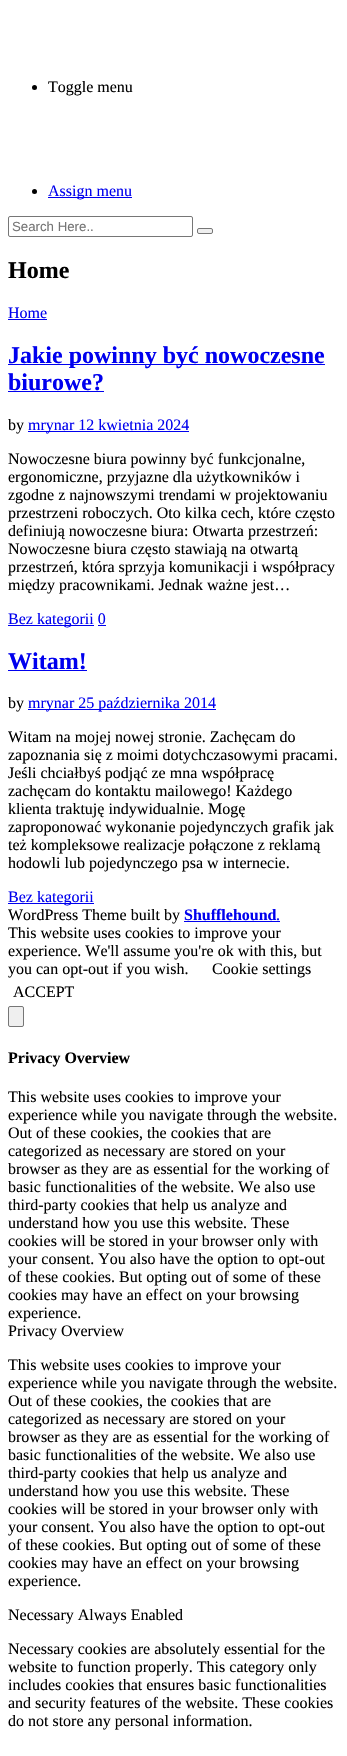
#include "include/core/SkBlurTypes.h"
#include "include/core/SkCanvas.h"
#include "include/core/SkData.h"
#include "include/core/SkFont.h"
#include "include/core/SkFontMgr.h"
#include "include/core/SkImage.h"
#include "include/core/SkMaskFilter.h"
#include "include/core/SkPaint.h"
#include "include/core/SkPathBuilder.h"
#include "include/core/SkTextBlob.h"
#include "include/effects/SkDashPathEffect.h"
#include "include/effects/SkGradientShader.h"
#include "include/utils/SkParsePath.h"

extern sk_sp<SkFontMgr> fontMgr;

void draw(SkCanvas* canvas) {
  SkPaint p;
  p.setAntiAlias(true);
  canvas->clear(SK_ColorWHITE);
  p.setColor(SK_ColorBLACK);
  canvas->drawCircle(34.5f, 87.5f, 2.5f, p);
  canvas->drawCircle(34.5f, 191.5f, 2.5f, p);
  p.setColor(SkColorSetRGB(0, 0, 238));
  canvas->drawRect(SkRect::MakeLTRB(48, 197, 132, 198), p);
  p.setStyle(SkPaint::kStroke_Style);
  p.setStrokeWidth(1);
  p.setColor(SkColorSetRGB(118, 118, 118));
  canvas->drawRoundRect(SkRect::MakeLTRB(8.5f, 216.5f, 192.5f, 236.5f), 1.5f, 1.5f, p);
  p.setStyle(SkPaint::kFill_Style);
  p.setColor(SkColorSetRGB(239, 239, 239));
  canvas->drawRoundRect(SkRect::MakeLTRB(197.5f, 228.5f, 212.5f, 233.5f), 1.5f, 1.5f, p);
  p.setStyle(SkPaint::kStroke_Style);
  p.setColor(SkColorSetRGB(118, 118, 118));
  canvas->drawRoundRect(SkRect::MakeLTRB(197.5f, 228.5f, 212.5f, 233.5f), 1.5f, 1.5f, p);
  p.setStyle(SkPaint::kFill_Style);
  p.setColor(SkColorSetRGB(0, 0, 238));
  canvas->drawRect(SkRect::MakeLTRB(8, 319, 47, 320), p);
  canvas->drawRect(SkRect::MakeLTRB(8, 364, 325, 365), p);
  canvas->drawRect(SkRect::MakeLTRB(8, 391, 104, 392), p);
  canvas->drawRect(SkRect::MakeLTRB(28, 431, 189, 432), p);
  canvas->drawRect(SkRect::MakeLTRB(8, 625, 94, 626), p);
  canvas->drawRect(SkRect::MakeLTRB(98, 625, 106, 626), p);
  canvas->drawRect(SkRect::MakeLTRB(8, 670, 87, 671), p);
  canvas->drawRect(SkRect::MakeLTRB(28, 709, 216, 710), p);
  canvas->drawRect(SkRect::MakeLTRB(8, 903, 94, 904), p);
  canvas->drawRect(SkRect::MakeLTRB(184, 921, 280, 922), p);
  p.setColor(SkColorSetRGB(239, 239, 239));
  canvas->drawRoundRect(SkRect::MakeLTRB(8.5f, 1006.5f, 23.5f, 1026.5f), 1.5f, 1.5f, p);
  p.setStyle(SkPaint::kStroke_Style);
  p.setColor(SkColorSetRGB(118, 118, 118));
  canvas->drawRoundRect(SkRect::MakeLTRB(8.5f, 1006.5f, 23.5f, 1026.5f), 1.5f, 1.5f, p);
  SkFont font1(fontMgr->matchFamilyStyle("Liberation Serif", SkFontStyle::Normal()), 16);
  font1.setSubpixel(true);
  p.setStyle(SkPaint::kFill_Style);
  p.setColor(SK_ColorBLACK);
  canvas->drawString("Toggle menu", 48, 92, font1, p);
  p.setColor(SkColorSetRGB(0, 0, 238));
  canvas->drawString("Assign menu", 48, 196, font1, p);
  SkFont font2(fontMgr->matchFamilyStyle("Liberation Sans", SkFontStyle::Normal()), 13.25f);
  font2.setSubpixel(true);
  p.setColor(SkColorSetRGB(117, 117, 117));
  canvas->drawString("Search Here..", 12, 231, font2, p);
  SkFont font3(fontMgr->matchFamilyStyle("Liberation Serif", SkFontStyle::Bold()), 24);
  font3.setSubpixel(true);
  p.setColor(SK_ColorBLACK);
  canvas->drawString("Home", 8, 278, font3, p);
  p.setColor(SkColorSetRGB(0, 0, 238));
  canvas->drawString("Home", 8, 318, font1, p);
  canvas->drawString("Jakie powinny być nowoczesne", 8, 363, font3, p);
  canvas->drawString("biurowe?", 8, 390, font3, p);
  p.setColor(SK_ColorBLACK);
  canvas->drawString("by", 8, 430, font1, p);
  p.setColor(SkColorSetRGB(0, 0, 238));
  canvas->drawString("mrynar 12 kwietnia 2024", 28, 430, font1, p);
  p.setColor(SK_ColorBLACK);
  canvas->drawString("Nowoczesne biura powinny być funkcjonalne,", 8, 464, font1, p);
  canvas->drawString("ergonomiczne, przyjazne dla użytkowników i", 8, 482, font1, p);
  canvas->drawString("zgodne z najnowszymi trendami w projektowaniu", 8, 500, font1, p);
  canvas->drawString("przestrzeni roboczych. Oto kilka cech, które często", 8, 518, font1, p);
  canvas->drawString("definiują nowoczesne biura: Otwarta przestrzeń:", 8, 536, font1, p);
  canvas->drawString("Nowoczesne biura często stawiają na otwartą", 8, 554, font1, p);
  canvas->drawString("przestrzeń, która sprzyja komunikacji i współpracy", 8, 572, font1, p);
  canvas->drawString("między pracownikami. Jednak ważne jest…", 8, 590, font1, p);
  p.setColor(SkColorSetRGB(0, 0, 238));
  canvas->drawString("Bez kategorii 0", 8, 624, font1, p);
  canvas->drawString("Witam!", 8, 669, font3, p);
  p.setColor(SK_ColorBLACK);
  canvas->drawString("by", 8, 708, font1, p);
  p.setColor(SkColorSetRGB(0, 0, 238));
  canvas->drawString("mrynar 25 października 2014", 28, 708, font1, p);
  p.setColor(SK_ColorBLACK);
  canvas->drawString("Witam na mojej nowej stronie. Zachęcam do", 8, 742, font1, p);
  canvas->drawString("zapoznania się z moimi dotychczasowymi pracami.", 8, 760, font1, p);
  canvas->drawString("Jeśli chciałbyś podjąć ze mna współpracę", 8, 778, font1, p);
  canvas->drawString("zachęcam do kontaktu mailowego! Każdego", 8, 796, font1, p);
  canvas->drawString("klienta traktuję indywidualnie. Mogę", 8, 814, font1, p);
  canvas->drawString("zaproponować wykonanie pojedynczych grafik jak", 8, 832, font1, p);
  canvas->drawString("też kompleksowe realizacje połączone z reklamą", 8, 850, font1, p);
  canvas->drawString("hodowli lub pojedynczego psa w internecie.", 8, 868, font1, p);
  p.setColor(SkColorSetRGB(0, 0, 238));
  canvas->drawString("Bez kategorii", 8, 902, font1, p);
  p.setColor(SK_ColorBLACK);
  canvas->drawString("WordPress Theme built by", 8, 920, font1, p);
  SkFont font4(fontMgr->matchFamilyStyle("Liberation Serif", SkFontStyle::Bold()), 16);
  font4.setSubpixel(true);
  p.setColor(SkColorSetRGB(0, 0, 238));
  canvas->drawString("Shufflehound", 184, 920, font4, p);
  canvas->drawString(".", 276, 920, font1, p);
  p.setColor(SK_ColorBLACK);
  canvas->drawString("This website uses cookies to improve your", 8, 938, font1, p);
  canvas->drawString("experience. We'll assume you're ok with this, but", 8, 956, font1, p);
  canvas->drawString("you can opt-out if you wish.", 8, 974, font1, p);
  canvas->drawString("Cookie settings", 212, 974, font1, p);
  canvas->drawString("ACCEPT", 13, 997, font1, p);
  canvas->drawString("Privacy Overview", 8, 1063, font4, p);
  canvas->drawString("This website uses cookies to improve your", 8, 1102, font1, p);
  canvas->drawString("experience while you navigate through the website.", 8, 1120, font1, p);
  canvas->drawString("Out of these cookies, the cookies that are", 8, 1138, font1, p);
  canvas->drawString("categorized as necessary are stored on your", 8, 1156, font1, p);
  canvas->drawString("browser as they are as essential for the working of", 8, 1174, font1, p);
  canvas->drawString("basic functionalities of the website. We also use", 8, 1192, font1, p);
  canvas->drawString("third-party cookies that help us analyze and", 8, 1210, font1, p);
  canvas->drawString("understand how you use this website. These", 8, 1228, font1, p);
  canvas->drawString("cookies will be stored in your browser only with", 8, 1246, font1, p);
  canvas->drawString("your consent. You also have the option to opt-out", 8, 1264, font1, p);
  canvas->drawString("of these cookies. But opting out of some of these", 8, 1282, font1, p);
  canvas->drawString("cookies may have an effect on your browsing", 8, 1300, font1, p);
  canvas->drawString("experience.", 8, 1318, font1, p);
  canvas->drawString("Privacy Overview", 8, 1336, font1, p);
  canvas->drawString("This website uses cookies to improve your", 8, 1370, font1, p);
  canvas->drawString("experience while you navigate through the website.", 8, 1388, font1, p);
  canvas->drawString("Out of these cookies, the cookies that are", 8, 1406, font1, p);
  canvas->drawString("categorized as necessary are stored on your", 8, 1424, font1, p);
  canvas->drawString("browser as they are as essential for the working of", 8, 1442, font1, p);
  canvas->drawString("basic functionalities of the website. We also use", 8, 1460, font1, p);
  canvas->drawString("third-party cookies that help us analyze and", 8, 1478, font1, p);
  canvas->drawString("understand how you use this website. These", 8, 1496, font1, p);
  canvas->drawString("cookies will be stored in your browser only with", 8, 1514, font1, p);
  canvas->drawString("your consent. You also have the option to opt-out", 8, 1532, font1, p);
  canvas->drawString("of these cookies. But opting out of some of these", 8, 1550, font1, p);
  canvas->drawString("cookies may have an effect on your browsing", 8, 1568, font1, p);
  canvas->drawString("experience.", 8, 1586, font1, p);
  canvas->drawString("Necessary Always Enabled", 8, 1620, font1, p);
  canvas->drawString("Necessary cookies are absolutely essential for the", 8, 1654, font1, p);
  canvas->drawString("website to function properly. This category only", 8, 1672, font1, p);
  canvas->drawString("includes cookies that ensures basic functionalities", 8, 1690, font1, p);
  canvas->drawString("and security features of the website. These cookies", 8, 1708, font1, p);
  canvas->drawString("do not store any personal information.", 8, 1726, font1, p);
}
